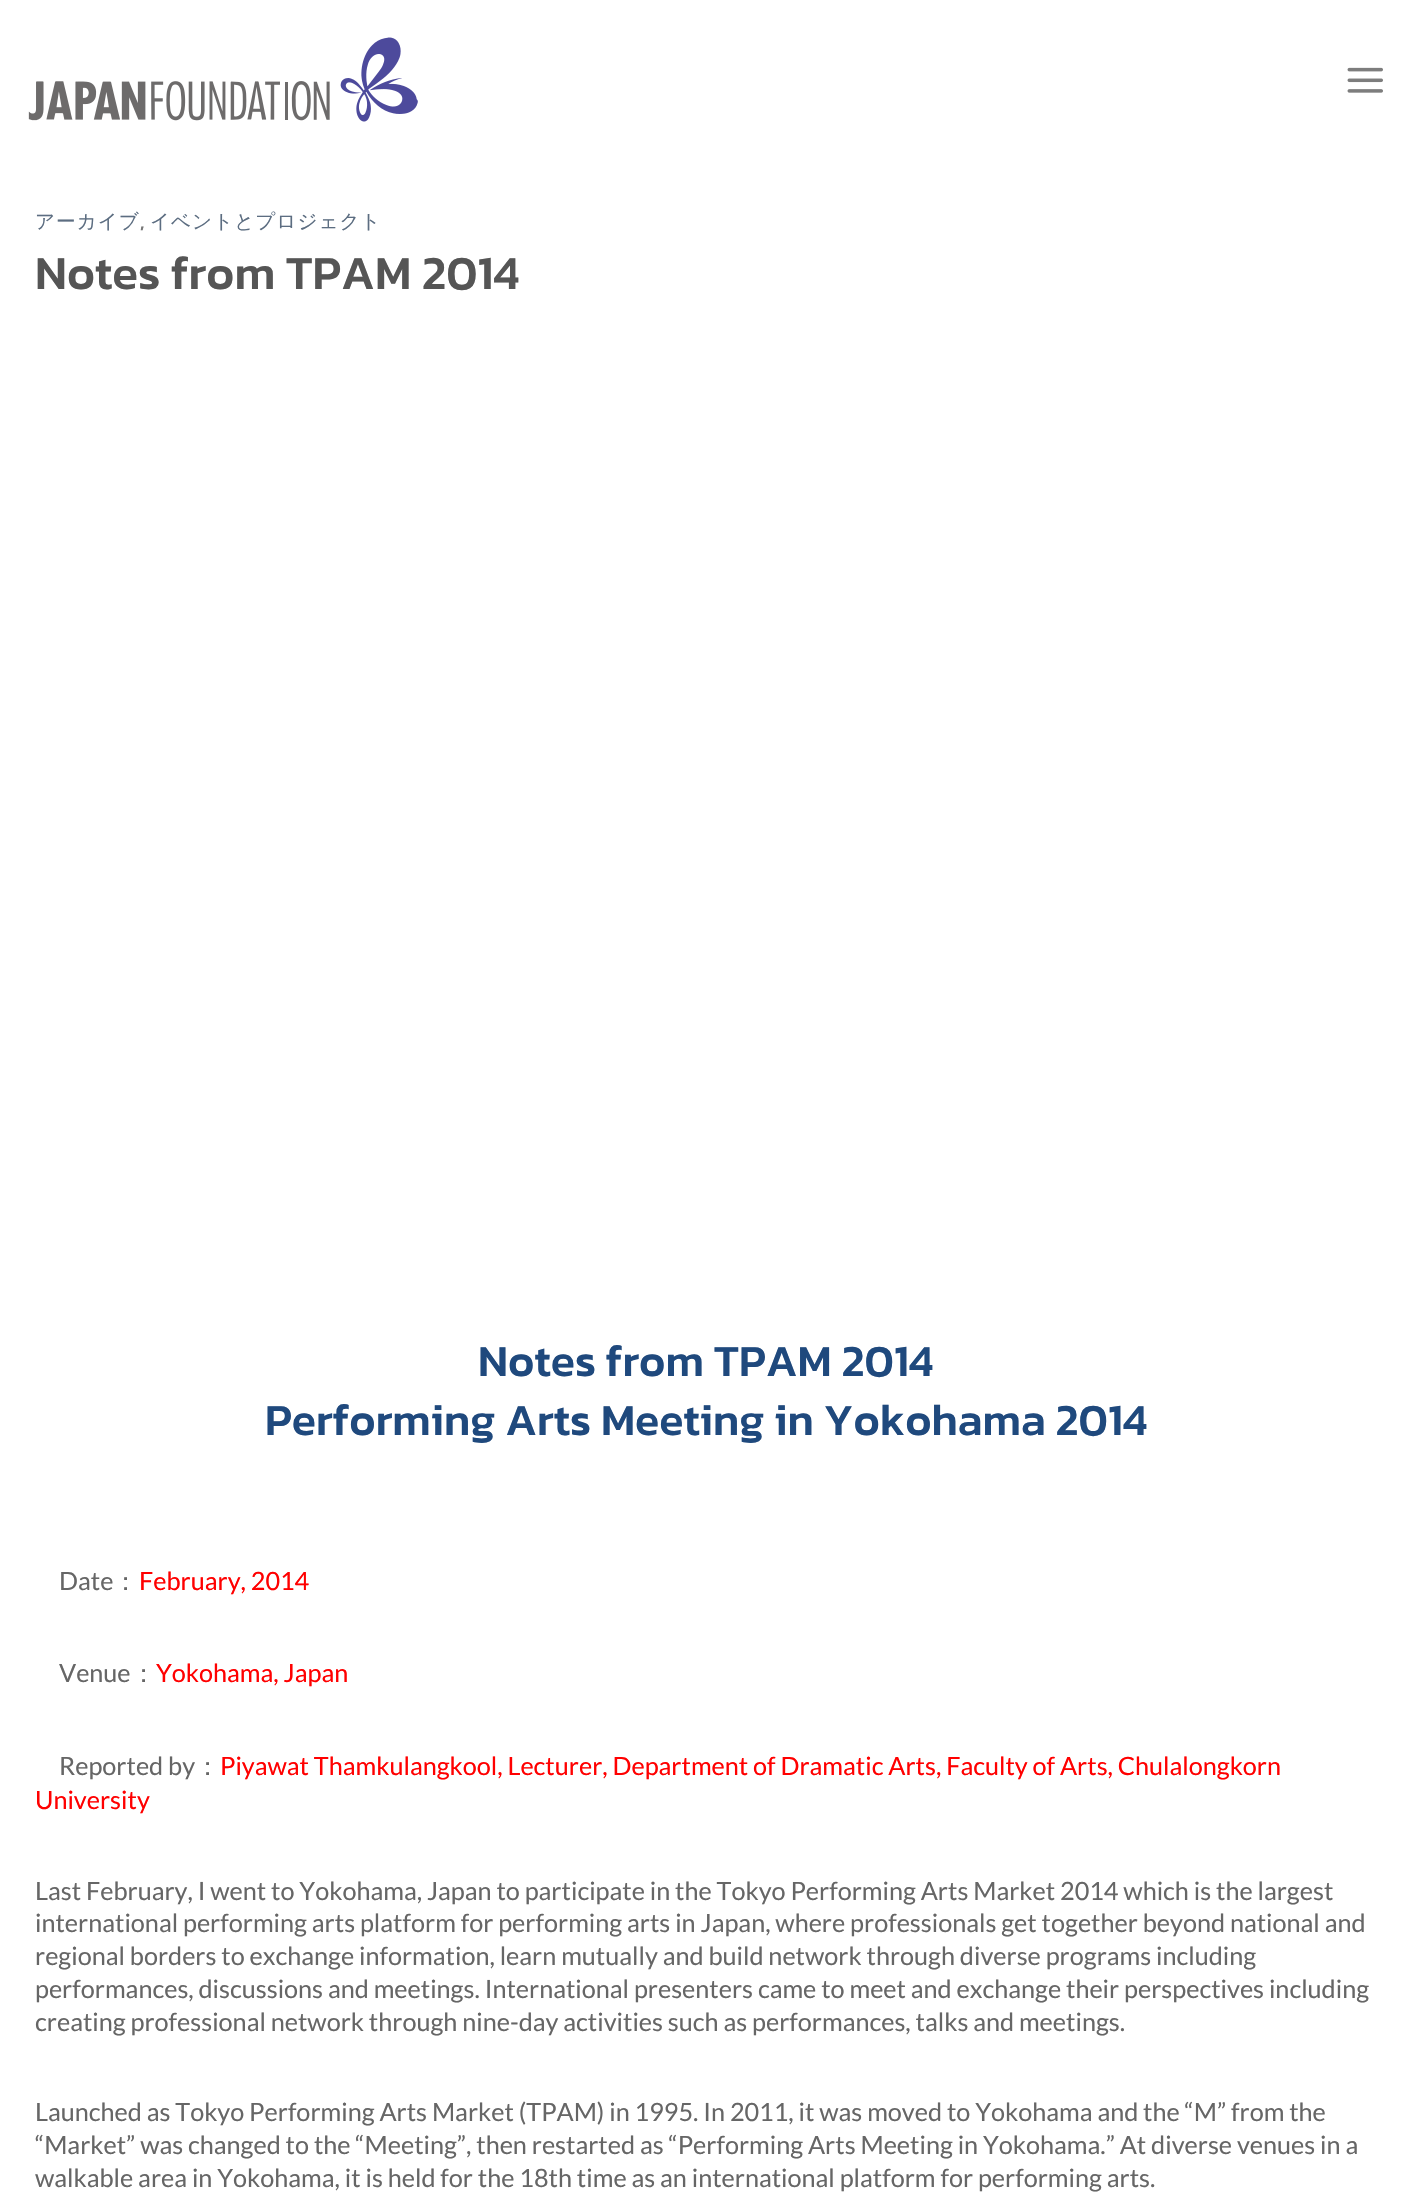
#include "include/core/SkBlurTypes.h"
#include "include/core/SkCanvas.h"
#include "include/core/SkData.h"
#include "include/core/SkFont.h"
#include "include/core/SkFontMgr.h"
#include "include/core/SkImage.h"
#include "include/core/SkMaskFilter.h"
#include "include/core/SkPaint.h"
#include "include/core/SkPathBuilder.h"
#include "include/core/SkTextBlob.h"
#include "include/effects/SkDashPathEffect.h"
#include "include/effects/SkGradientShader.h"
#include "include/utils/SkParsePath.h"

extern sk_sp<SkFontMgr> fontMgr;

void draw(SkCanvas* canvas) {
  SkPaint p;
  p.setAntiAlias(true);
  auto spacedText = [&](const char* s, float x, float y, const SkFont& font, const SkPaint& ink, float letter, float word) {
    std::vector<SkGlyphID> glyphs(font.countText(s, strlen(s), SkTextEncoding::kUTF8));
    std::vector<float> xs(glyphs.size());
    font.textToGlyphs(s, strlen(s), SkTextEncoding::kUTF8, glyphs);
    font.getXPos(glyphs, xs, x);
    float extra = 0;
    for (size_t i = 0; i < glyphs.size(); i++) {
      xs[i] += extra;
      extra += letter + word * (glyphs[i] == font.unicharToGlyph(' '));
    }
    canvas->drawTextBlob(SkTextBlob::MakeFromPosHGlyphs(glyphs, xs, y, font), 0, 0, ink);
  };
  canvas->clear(SK_ColorWHITE);
  canvas->drawImageRect(SkImages::DeferredFromEncodedData(SkData::MakeFromFileName("images/1.png")), SkRect::MakeLTRB(28, 37, 418, 122), SkSamplingOptions());
  canvas->drawImageRect(SkImages::DeferredFromEncodedData(SkData::MakeFromFileName("images/2.png")), SkRect::MakeLTRB(1347, 67, 1383, 93), SkSamplingOptions());
  SkFont font1(fontMgr->matchFamilyStyle("WenQuanYi Zen Hei", SkFontStyle(500, SkFontStyle::kNormal_Width, SkFontStyle::kUpright_Slant)), 19.6f);
  font1.setSubpixel(true);
  p.setColor(SkColorSetRGB(92, 109, 129));
  spacedText("アーカイブ", 35, 228, font1, p, 1, 0);
  SkFont font2(fontMgr->matchFamilyStyle("Kanit", SkFontStyle(500, SkFontStyle::kNormal_Width, SkFontStyle::kUpright_Slant)), 19.6f);
  font2.setSubpixel(true);
  p.setColor(SkColorSetRGB(119, 119, 119));
  spacedText(",", 140, 228, font2, p, 1, 0);
  p.setColor(SkColorSetRGB(92, 109, 129));
  spacedText("イベントとプロジェクト", 150, 228, font1, p, 1, 0);
  SkFont font3(fontMgr->matchFamilyStyle("Kanit", SkFontStyle(500, SkFontStyle::kNormal_Width, SkFontStyle::kUpright_Slant)), 47.6f);
  font3.setSubpixel(true);
  p.setColor(SkColorSetRGB(85, 85, 85));
  canvas->drawString("Notes from TPAM 2014", 35, 289, font3, p);
  SkFont font4(fontMgr->matchFamilyStyle("Kanit", SkFontStyle(500, SkFontStyle::kNormal_Width, SkFontStyle::kUpright_Slant)), 44.75f);
  font4.setSubpixel(true);
  p.setColor(SkColorSetRGB(31, 73, 125));
  canvas->drawString("Notes from TPAM 2014", 478, 1376, font4, p);
  canvas->drawString("Performing Arts Meeting in Yokohama 2014", 265, 1435, font4, p);
  SkFont font5(fontMgr->matchFamilyStyle("Lato", SkFontStyle::Normal()), 25.2f);
  font5.setSubpixel(true);
  p.setColor(SkColorSetRGB(102, 102, 102));
  canvas->drawString("Date", 59, 1590, font5, p);
  SkFont font6(fontMgr->matchFamilyStyle("WenQuanYi Zen Hei", SkFontStyle(500, SkFontStyle::kNormal_Width, SkFontStyle::kUpright_Slant)), 25.2f);
  font6.setSubpixel(true);
  canvas->drawString("：", 113, 1590, font6, p);
  p.setColor(SkColorSetRGB(255, 0, 0));
  canvas->drawString("February, 2014", 139, 1590, font5, p);
  p.setColor(SkColorSetRGB(102, 102, 102));
  canvas->drawString("Venue", 59, 1682, font5, p);
  canvas->drawString("：", 131, 1682, font6, p);
  p.setColor(SkColorSetRGB(255, 0, 0));
  canvas->drawString("Yokohama, Japan", 156, 1682, font5, p);
  p.setColor(SkColorSetRGB(102, 102, 102));
  canvas->drawString("Reported by", 59, 1775, font5, p);
  canvas->drawString("：", 195, 1775, font6, p);
  p.setColor(SkColorSetRGB(255, 0, 0));
  canvas->drawString("Piyawat Thamkulangkool, Lecturer, Department of Dramatic Arts, Faculty of Arts, Chulalongkorn", 220, 1775, font5, p);
  canvas->drawString("University", 35, 1809, font5, p);
  p.setColor(SkColorSetRGB(102, 102, 102));
  canvas->drawString("Last February, I went to Yokohama, Japan to participate in the Tokyo Performing Arts Market 2014 which is the largest", 35, 1900, font5, p);
  canvas->drawString("international performing arts platform for performing arts in Japan, where professionals get together beyond national and", 35, 1932, font5, p);
  canvas->drawString("regional borders to exchange information, learn mutually and build network through diverse programs including", 35, 1965, font5, p);
  canvas->drawString("performances, discussions and meetings. International presenters came to meet and exchange their perspectives including", 35, 1998, font5, p);
  canvas->drawString("creating professional network through nine-day activities such as performances, talks and meetings.", 35, 2031, font5, p);
  canvas->drawString("Launched as Tokyo Performing Arts Market (TPAM) in 1995. In 2011, it was moved to Yokohama and the “M” from the", 35, 2121, font5, p);
  canvas->drawString("“Market” was changed to the “Meeting”, then restarted as “Performing Arts Meeting in Yokohama.” At diverse venues in a", 35, 2154, font5, p);
  canvas->drawString("walkable area in Yokohama, it is held for the 18th time as an international platform for performing arts.", 35, 2187, font5, p);
}
